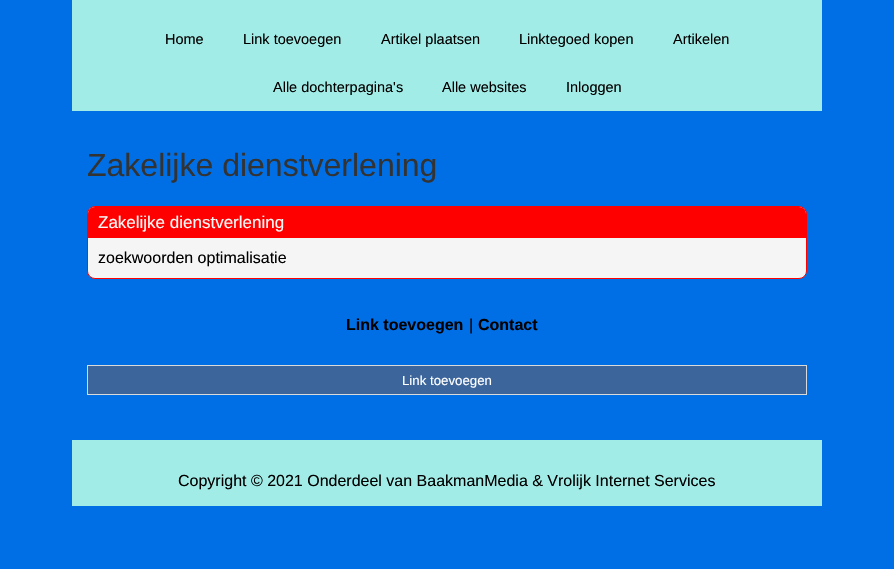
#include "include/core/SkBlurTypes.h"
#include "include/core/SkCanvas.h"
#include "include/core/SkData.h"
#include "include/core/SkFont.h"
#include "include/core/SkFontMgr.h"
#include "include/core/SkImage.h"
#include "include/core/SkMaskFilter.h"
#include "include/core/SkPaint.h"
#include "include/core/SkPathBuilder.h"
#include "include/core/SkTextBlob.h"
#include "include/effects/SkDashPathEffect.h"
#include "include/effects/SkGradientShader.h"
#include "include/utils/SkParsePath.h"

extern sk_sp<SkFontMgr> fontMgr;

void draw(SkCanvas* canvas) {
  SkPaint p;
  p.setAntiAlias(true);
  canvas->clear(SkColorSetRGB(0, 111, 230));
  p.setColor(SkColorSetRGB(162, 236, 231));
  canvas->drawRect(SkRect::MakeLTRB(72, 0, 822, 111), p);
  p.setColor(SkColorSetRGB(245, 245, 245));
  canvas->drawRoundRect(SkRect::MakeLTRB(87.5f, 206.5f, 806.5f, 278.5f), 7.5f, 7.5f, p);
  p.setStyle(SkPaint::kStroke_Style);
  p.setStrokeWidth(1);
  p.setColor(SkColorSetRGB(255, 0, 0));
  canvas->drawRoundRect(SkRect::MakeLTRB(87.5f, 206.5f, 806.5f, 278.5f), 7.5f, 7.5f, p);
  p.setStyle(SkPaint::kFill_Style);
  canvas->drawPath(SkPathBuilder().moveTo(95, 207).lineTo(799, 207).cubicTo(803, 207, 806, 210, 806, 214).lineTo(806, 238).lineTo(88, 238).lineTo(88, 214).cubicTo(88, 210, 91, 207, 95, 207).close().detach(), p);
  p.setColor(SkColorSetRGB(59, 101, 155));
  canvas->drawRect(SkRect::MakeLTRB(87.5f, 365.5f, 806.5f, 394.5f), p);
  p.setStyle(SkPaint::kStroke_Style);
  p.setColor(SkColorSetRGB(218, 218, 218));
  canvas->drawRect(SkRect::MakeLTRB(87.5f, 365.5f, 806.5f, 394.5f), p);
  p.setStyle(SkPaint::kFill_Style);
  p.setColor(SkColorSetRGB(162, 236, 231));
  canvas->drawRect(SkRect::MakeLTRB(72, 440, 822, 506), p);
  SkFont font1(fontMgr->matchFamilyStyle("Liberation Sans", SkFontStyle::Normal()), 14.5f);
  font1.setSubpixel(true);
  p.setColor(SK_ColorBLACK);
  canvas->drawString("Home", 165, 44, font1, p);
  canvas->drawString("Link toevoegen", 243, 44, font1, p);
  canvas->drawString("Artikel plaatsen", 381, 44, font1, p);
  canvas->drawString("Linktegoed kopen", 519, 44, font1, p);
  canvas->drawString("Artikelen", 673, 44, font1, p);
  canvas->drawString("Alle dochterpagina's", 273, 92, font1, p);
  canvas->drawString("Alle websites", 442, 92, font1, p);
  canvas->drawString("Inloggen", 566, 92, font1, p);
  SkFont font2(fontMgr->matchFamilyStyle("Liberation Sans", SkFontStyle::Normal()), 32);
  font2.setSubpixel(true);
  p.setColor(SkColorSetRGB(51, 51, 51));
  canvas->drawString("Zakelijke dienstverlening", 87, 176, font2, p);
  SkFont font3(fontMgr->matchFamilyStyle("Liberation Sans", SkFontStyle::Normal()), 17);
  font3.setSubpixel(true);
  p.setColor(SkColorSetRGB(248, 248, 247));
  canvas->drawString("Zakelijke dienstverlening", 98, 228, font3, p);
  SkFont font4(fontMgr->matchFamilyStyle("Liberation Sans", SkFontStyle::Normal()), 16);
  font4.setSubpixel(true);
  p.setColor(SK_ColorBLACK);
  canvas->drawString("zoekwoorden optimalisatie", 98, 263, font4, p);
  SkFont font5(fontMgr->matchFamilyStyle("Liberation Sans", SkFontStyle::Bold()), 16);
  font5.setSubpixel(true);
  canvas->drawString("Link toevoegen", 346, 330, font5, p);
  canvas->drawString("|", 469, 330, font4, p);
  canvas->drawString("Contact", 478, 330, font5, p);
  SkFont font6(fontMgr->matchFamilyStyle("Liberation Sans", SkFontStyle::Normal()), 13.25f);
  font6.setSubpixel(true);
  p.setColor(SK_ColorWHITE);
  canvas->drawString("Link toevoegen", 402, 385, font6, p);
  p.setColor(SK_ColorBLACK);
  canvas->drawString("Copyright © 2021 Onderdeel van BaakmanMedia & Vrolijk Internet Services", 178, 486, font4, p);
}
